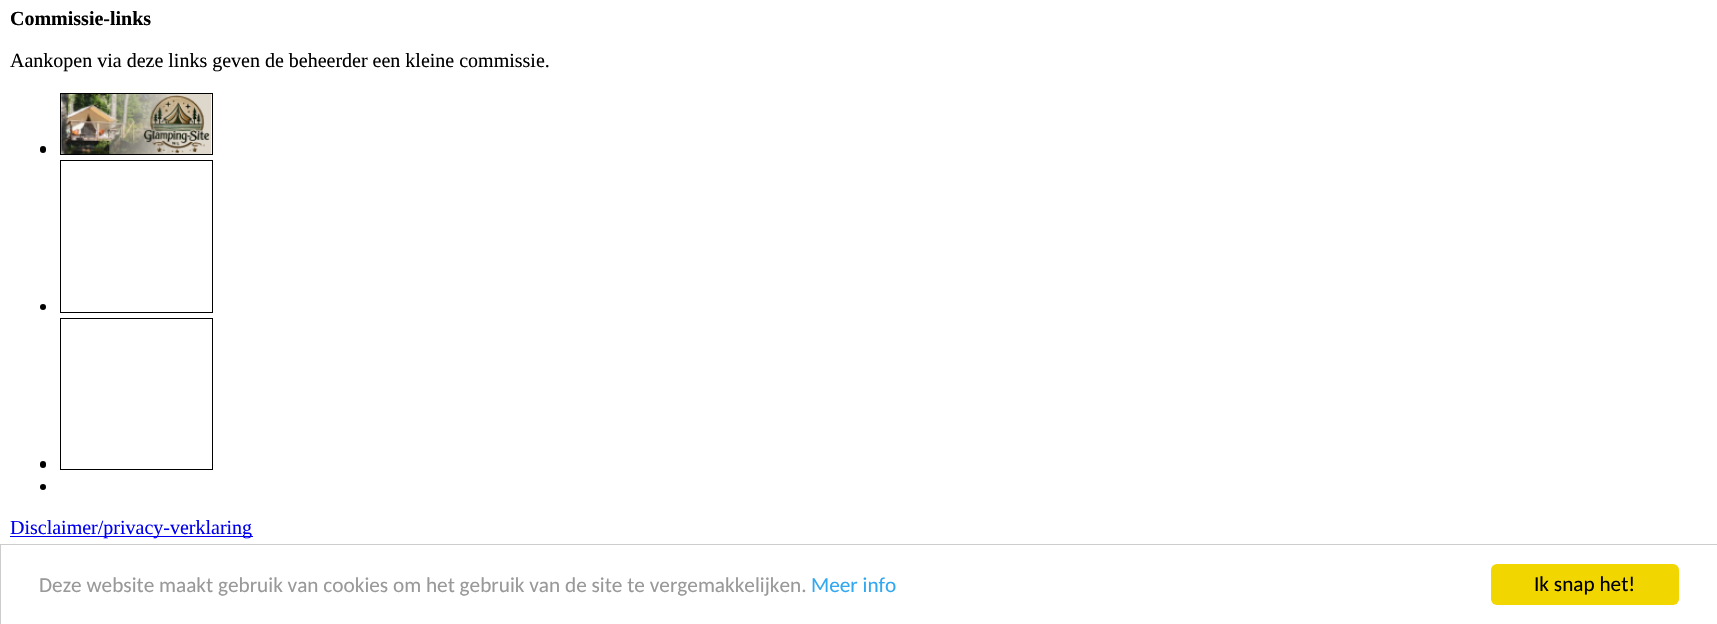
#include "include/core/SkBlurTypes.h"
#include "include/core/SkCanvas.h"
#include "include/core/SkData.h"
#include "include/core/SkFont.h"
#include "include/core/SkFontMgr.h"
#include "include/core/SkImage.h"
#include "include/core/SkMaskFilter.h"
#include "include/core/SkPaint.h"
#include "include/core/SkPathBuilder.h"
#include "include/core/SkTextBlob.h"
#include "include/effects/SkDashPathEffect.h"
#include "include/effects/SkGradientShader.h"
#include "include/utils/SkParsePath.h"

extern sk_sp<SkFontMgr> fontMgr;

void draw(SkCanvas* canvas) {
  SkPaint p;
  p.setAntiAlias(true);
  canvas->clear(SK_ColorWHITE);
  p.setStyle(SkPaint::kStroke_Style);
  p.setStrokeWidth(1);
  p.setColor(SK_ColorBLACK);
  canvas->drawRect(SkRect::MakeLTRB(60.5f, 93.5f, 212.5f, 154.5f), p);
  p.setStyle(SkPaint::kFill_Style);
  canvas->drawRoundRect(SkRect::MakeLTRB(40, 146, 46, 153), 3, 3, p);
  canvas->drawImageRect(SkImages::DeferredFromEncodedData(SkData::MakeFromFileName("images/1.png")), SkRect::MakeLTRB(61, 94, 212, 154), SkSamplingOptions());
  canvas->drawCircle(43, 307, 3, p);
  p.setStyle(SkPaint::kStroke_Style);
  canvas->drawRect(SkRect::MakeLTRB(60.5f, 160.5f, 212.5f, 312.5f), p);
  p.setStyle(SkPaint::kFill_Style);
  canvas->drawRoundRect(SkRect::MakeLTRB(40, 461, 46, 468), 3, 3, p);
  p.setStyle(SkPaint::kStroke_Style);
  canvas->drawRect(SkRect::MakeLTRB(60.5f, 318.5f, 212.5f, 469.5f), p);
  p.setStyle(SkPaint::kFill_Style);
  canvas->drawCircle(43, 487, 3, p);
  p.setColor(SkColorSetRGB(0, 0, 238));
  canvas->drawRect(SkRect::MakeLTRB(10, 536, 253, 537), p);
  p.setStyle(SkPaint::kStroke_Style);
  p.setColor(SkColorSetRGB(204, 204, 204));
  canvas->drawRect(SkRect::MakeLTRB(0.5f, 544.5f, 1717.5f, 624.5f), p);
  p.setStyle(SkPaint::kFill_Style);
  p.setColor(SkColorSetRGB(241, 214, 0));
  canvas->drawRoundRect(SkRect::MakeLTRB(1491, 564, 1679, 605), 6, 6, p);
  SkFont font1(fontMgr->matchFamilyStyle("Liberation Serif", SkFontStyle::Bold()), 20);
  font1.setSubpixel(true);
  p.setColor(SK_ColorBLACK);
  canvas->drawString("Commissie-links", 10, 25, font1, p);
  SkFont font2(fontMgr->matchFamilyStyle("Liberation Serif", SkFontStyle::Normal()), 20);
  font2.setSubpixel(true);
  canvas->drawString("Aankopen via deze links geven de beheerder een kleine commissie.", 10, 67, font2, p);
  p.setColor(SkColorSetRGB(0, 0, 238));
  canvas->drawString("Disclaimer/privacy-verklaring", 10, 534, font2, p);
  SkFont font3(fontMgr->matchFamilyStyle("Carlito", SkFontStyle::Normal()), 21.25f);
  font3.setSubpixel(true);
  p.setColor(SkColorSetRGB(153, 153, 153));
  canvas->drawString("Deze website maakt gebruik van cookies om het gebruik van de site te vergemakkelijken.", 39, 592, font3, p);
  p.setColor(SkColorSetRGB(49, 168, 240));
  canvas->drawString("Meer info", 811, 592, font3, p);
  p.setColor(SK_ColorBLACK);
  canvas->drawString("Ik snap het!", 1534, 591, font3, p);
}
